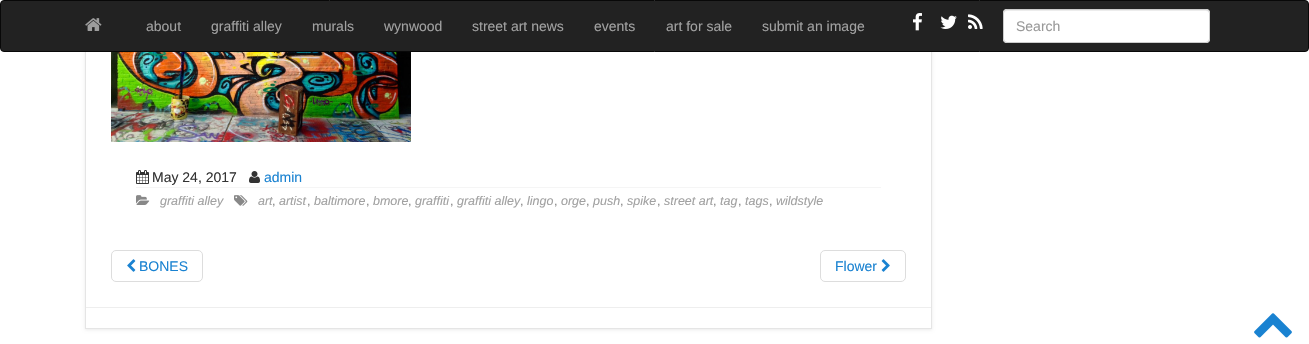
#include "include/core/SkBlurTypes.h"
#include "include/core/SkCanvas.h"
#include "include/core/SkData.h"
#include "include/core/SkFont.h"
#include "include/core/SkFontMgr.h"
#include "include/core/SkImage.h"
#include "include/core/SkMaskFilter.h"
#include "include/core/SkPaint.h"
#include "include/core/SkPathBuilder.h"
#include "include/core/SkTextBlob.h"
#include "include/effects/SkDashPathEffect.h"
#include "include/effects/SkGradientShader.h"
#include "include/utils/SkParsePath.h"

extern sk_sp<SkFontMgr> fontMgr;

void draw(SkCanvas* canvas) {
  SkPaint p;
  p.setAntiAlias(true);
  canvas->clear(SK_ColorWHITE);
  canvas->save();
  canvas->clipPath(SkPathBuilder(SkPathFillType::kEvenOdd).moveTo(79, 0).lineTo(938, 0).lineTo(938, 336).lineTo(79, 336).close().moveTo(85, -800).lineTo(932, -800).lineTo(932, 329).lineTo(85, 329).close().detach(), true);
  p.setColor(SkColorSetARGB(20, 0, 0, 0));
  p.setMaskFilter(SkMaskFilter::MakeBlur(kNormal_SkBlurStyle, 1.5f));
  canvas->drawRect(SkRect::MakeLTRB(85, -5, 932, 330), p);
  p.setMaskFilter(nullptr);
  canvas->restore();
  p.setStyle(SkPaint::kStroke_Style);
  p.setStrokeWidth(1);
  p.setColor(SkColorSetRGB(229, 229, 229));
  canvas->drawRect(SkRect::MakeLTRB(85.5f, -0.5f, 931.5f, 328.5f), p);
  p.setStyle(SkPaint::kFill_Style);
  p.setColor(SkColorSetRGB(34, 34, 34));
  canvas->drawRoundRect(SkRect::MakeLTRB(0.5f, 0.5f, 1308.5f, 51.5f), 3.5f, 3.5f, p);
  p.setStyle(SkPaint::kStroke_Style);
  p.setColor(SkColorSetRGB(8, 8, 8));
  canvas->drawRoundRect(SkRect::MakeLTRB(0.5f, 0.5f, 1308.5f, 51.5f), 3.5f, 3.5f, p);
  canvas->drawImageRect(SkImages::DeferredFromEncodedData(SkData::MakeFromFileName("images/1.png")), SkRect::MakeLTRB(85, 18, 102, 31), SkSamplingOptions());
  canvas->drawImageRect(SkImages::DeferredFromEncodedData(SkData::MakeFromFileName("images/2.png")), SkRect::MakeLTRB(913, 13, 922, 31), SkSamplingOptions());
  canvas->drawImageRect(SkImages::DeferredFromEncodedData(SkData::MakeFromFileName("images/3.png")), SkRect::MakeLTRB(940, 15, 957, 29), SkSamplingOptions());
  canvas->drawImageRect(SkImages::DeferredFromEncodedData(SkData::MakeFromFileName("images/4.png")), SkRect::MakeLTRB(968, 14, 983, 29), SkSamplingOptions());
  p.setStyle(SkPaint::kFill_Style);
  p.setColor(SK_ColorWHITE);
  canvas->drawRoundRect(SkRect::MakeLTRB(1003, 9, 1210, 43), 4, 4, p);
  p.setColor(SkColorSetRGB(236, 236, 236));
  canvas->drawPath(SkPathBuilder().moveTo(1007, 11).lineTo(1206, 11).cubicTo(1208, 11, 1209, 12, 1209, 14).cubicTo(1209, 12, 1208, 10, 1206, 10).lineTo(1007, 10).cubicTo(1005, 10, 1004, 12, 1004, 14).cubicTo(1004, 12, 1005, 11, 1007, 11).close().detach(), p);
  p.setStyle(SkPaint::kStroke_Style);
  p.setColor(SkColorSetRGB(204, 204, 204));
  canvas->drawRoundRect(SkRect::MakeLTRB(1003.5f, 9.5f, 1209.5f, 42.5f), 3.5f, 3.5f, p);
  canvas->drawImageRect(SkImages::DeferredFromEncodedData(SkData::MakeFromFileName("images/5.png")), SkRect::MakeLTRB(111, 52, 411, 142), SkSamplingOptions());
  canvas->drawImageRect(SkImages::DeferredFromEncodedData(SkData::MakeFromFileName("images/6.png")), SkRect::MakeLTRB(136, 170, 149, 184), SkSamplingOptions());
  canvas->drawImageRect(SkImages::DeferredFromEncodedData(SkData::MakeFromFileName("images/7.png")), SkRect::MakeLTRB(249, 171, 260, 183), SkSamplingOptions());
  p.setStyle(SkPaint::kFill_Style);
  p.setColor(SkColorSetRGB(245, 245, 245));
  canvas->drawRect(SkRect::MakeLTRB(136, 187, 881, 188), p);
  canvas->drawImageRect(SkImages::DeferredFromEncodedData(SkData::MakeFromFileName("images/8.png")), SkRect::MakeLTRB(136, 195, 150, 205), SkSamplingOptions());
  canvas->drawImageRect(SkImages::DeferredFromEncodedData(SkData::MakeFromFileName("images/9.png")), SkRect::MakeLTRB(234, 195, 248, 206), SkSamplingOptions());
  p.setStyle(SkPaint::kStroke_Style);
  p.setColor(SkColorSetRGB(221, 221, 221));
  canvas->drawRoundRect(SkRect::MakeLTRB(111.5f, 250.5f, 202.5f, 281.5f), 4.5f, 4.5f, p);
  canvas->drawImageRect(SkImages::DeferredFromEncodedData(SkData::MakeFromFileName("images/10.png")), SkRect::MakeLTRB(127, 259, 136, 272), SkSamplingOptions());
  canvas->drawRoundRect(SkRect::MakeLTRB(820.5f, 250.5f, 905.5f, 281.5f), 4.5f, 4.5f, p);
  canvas->drawImageRect(SkImages::DeferredFromEncodedData(SkData::MakeFromFileName("images/11.png")), SkRect::MakeLTRB(881, 259, 890, 272), SkSamplingOptions());
  p.setStyle(SkPaint::kFill_Style);
  p.setColor(SkColorSetRGB(238, 238, 238));
  canvas->drawRect(SkRect::MakeLTRB(86, 307, 931, 308), p);
  canvas->drawImageRect(SkImages::DeferredFromEncodedData(SkData::MakeFromFileName("images/12.png")), SkRect::MakeLTRB(1254, 313, 1292, 338), SkSamplingOptions());
  SkFont font1(fontMgr->matchFamilyStyle("Liberation Sans", SkFontStyle::Normal()), 14);
  font1.setSubpixel(true);
  p.setColor(SkColorSetRGB(161, 161, 161));
  canvas->drawString("about", 146, 31, font1, p);
  canvas->drawString("graffiti alley", 211, 31, font1, p);
  canvas->drawString("murals", 312, 31, font1, p);
  canvas->drawString("wynwood", 384, 31, font1, p);
  canvas->drawString("street art news", 472, 31, font1, p);
  canvas->drawString("events", 594, 31, font1, p);
  canvas->drawString("art for sale", 666, 31, font1, p);
  canvas->drawString("submit an image", 762, 31, font1, p);
  p.setColor(SkColorSetRGB(153, 153, 153));
  canvas->drawString("Search", 1016, 31, font1, p);
  p.setColor(SkColorSetRGB(51, 51, 51));
  canvas->drawString("May 24, 2017", 152, 182, font1, p);
  p.setColor(SkColorSetRGB(25, 130, 209));
  canvas->drawString("admin", 264, 182, font1, p);
  SkFont font2(fontMgr->matchFamilyStyle("Liberation Sans", SkFontStyle::Italic()), 12.5f);
  font2.setSubpixel(true);
  p.setColor(SkColorSetRGB(161, 161, 161));
  canvas->drawString("graffiti alley", 160, 205, font2, p);
  canvas->drawString("art", 258, 205, font2, p);
  SkFont font3(fontMgr->matchFamilyStyle("Liberation Sans", SkFontStyle::Normal()), 12.5f);
  font3.setSubpixel(true);
  p.setColor(SkColorSetRGB(136, 136, 136));
  canvas->drawString(",", 272, 205, font3, p);
  p.setColor(SkColorSetRGB(161, 161, 161));
  canvas->drawString("artist", 279, 205, font2, p);
  p.setColor(SkColorSetRGB(136, 136, 136));
  canvas->drawString(",", 307, 205, font3, p);
  p.setColor(SkColorSetRGB(161, 161, 161));
  canvas->drawString("baltimore", 314, 205, font2, p);
  p.setColor(SkColorSetRGB(136, 136, 136));
  canvas->drawString(",", 366, 205, font3, p);
  p.setColor(SkColorSetRGB(161, 161, 161));
  canvas->drawString("bmore", 373, 205, font2, p);
  p.setColor(SkColorSetRGB(136, 136, 136));
  canvas->drawString(",", 408, 205, font3, p);
  p.setColor(SkColorSetRGB(161, 161, 161));
  canvas->drawString("graffiti", 415, 205, font2, p);
  p.setColor(SkColorSetRGB(136, 136, 136));
  canvas->drawString(",", 450, 205, font3, p);
  p.setColor(SkColorSetRGB(161, 161, 161));
  canvas->drawString("graffiti alley", 457, 205, font2, p);
  p.setColor(SkColorSetRGB(136, 136, 136));
  canvas->drawString(",", 520, 205, font3, p);
  p.setColor(SkColorSetRGB(161, 161, 161));
  canvas->drawString("lingo", 527, 205, font2, p);
  p.setColor(SkColorSetRGB(136, 136, 136));
  canvas->drawString(",", 554, 205, font3, p);
  p.setColor(SkColorSetRGB(161, 161, 161));
  canvas->drawString("orge", 561, 205, font2, p);
  p.setColor(SkColorSetRGB(136, 136, 136));
  canvas->drawString(",", 586, 205, font3, p);
  p.setColor(SkColorSetRGB(161, 161, 161));
  canvas->drawString("push", 593, 205, font2, p);
  p.setColor(SkColorSetRGB(136, 136, 136));
  canvas->drawString(",", 620, 205, font3, p);
  p.setColor(SkColorSetRGB(161, 161, 161));
  canvas->drawString("spike", 627, 205, font2, p);
  p.setColor(SkColorSetRGB(136, 136, 136));
  canvas->drawString(",", 657, 205, font3, p);
  p.setColor(SkColorSetRGB(161, 161, 161));
  canvas->drawString("street art", 664, 205, font2, p);
  p.setColor(SkColorSetRGB(136, 136, 136));
  canvas->drawString(",", 713, 205, font3, p);
  p.setColor(SkColorSetRGB(161, 161, 161));
  canvas->drawString("tag", 720, 205, font2, p);
  p.setColor(SkColorSetRGB(136, 136, 136));
  canvas->drawString(",", 738, 205, font3, p);
  p.setColor(SkColorSetRGB(161, 161, 161));
  canvas->drawString("tags", 745, 205, font2, p);
  p.setColor(SkColorSetRGB(136, 136, 136));
  canvas->drawString(",", 769, 205, font3, p);
  p.setColor(SkColorSetRGB(161, 161, 161));
  canvas->drawString("wildstyle", 776, 205, font2, p);
  p.setColor(SkColorSetRGB(25, 130, 209));
  canvas->drawString("BONES", 139, 271, font1, p);
  canvas->drawString("Flower", 835, 271, font1, p);
}
